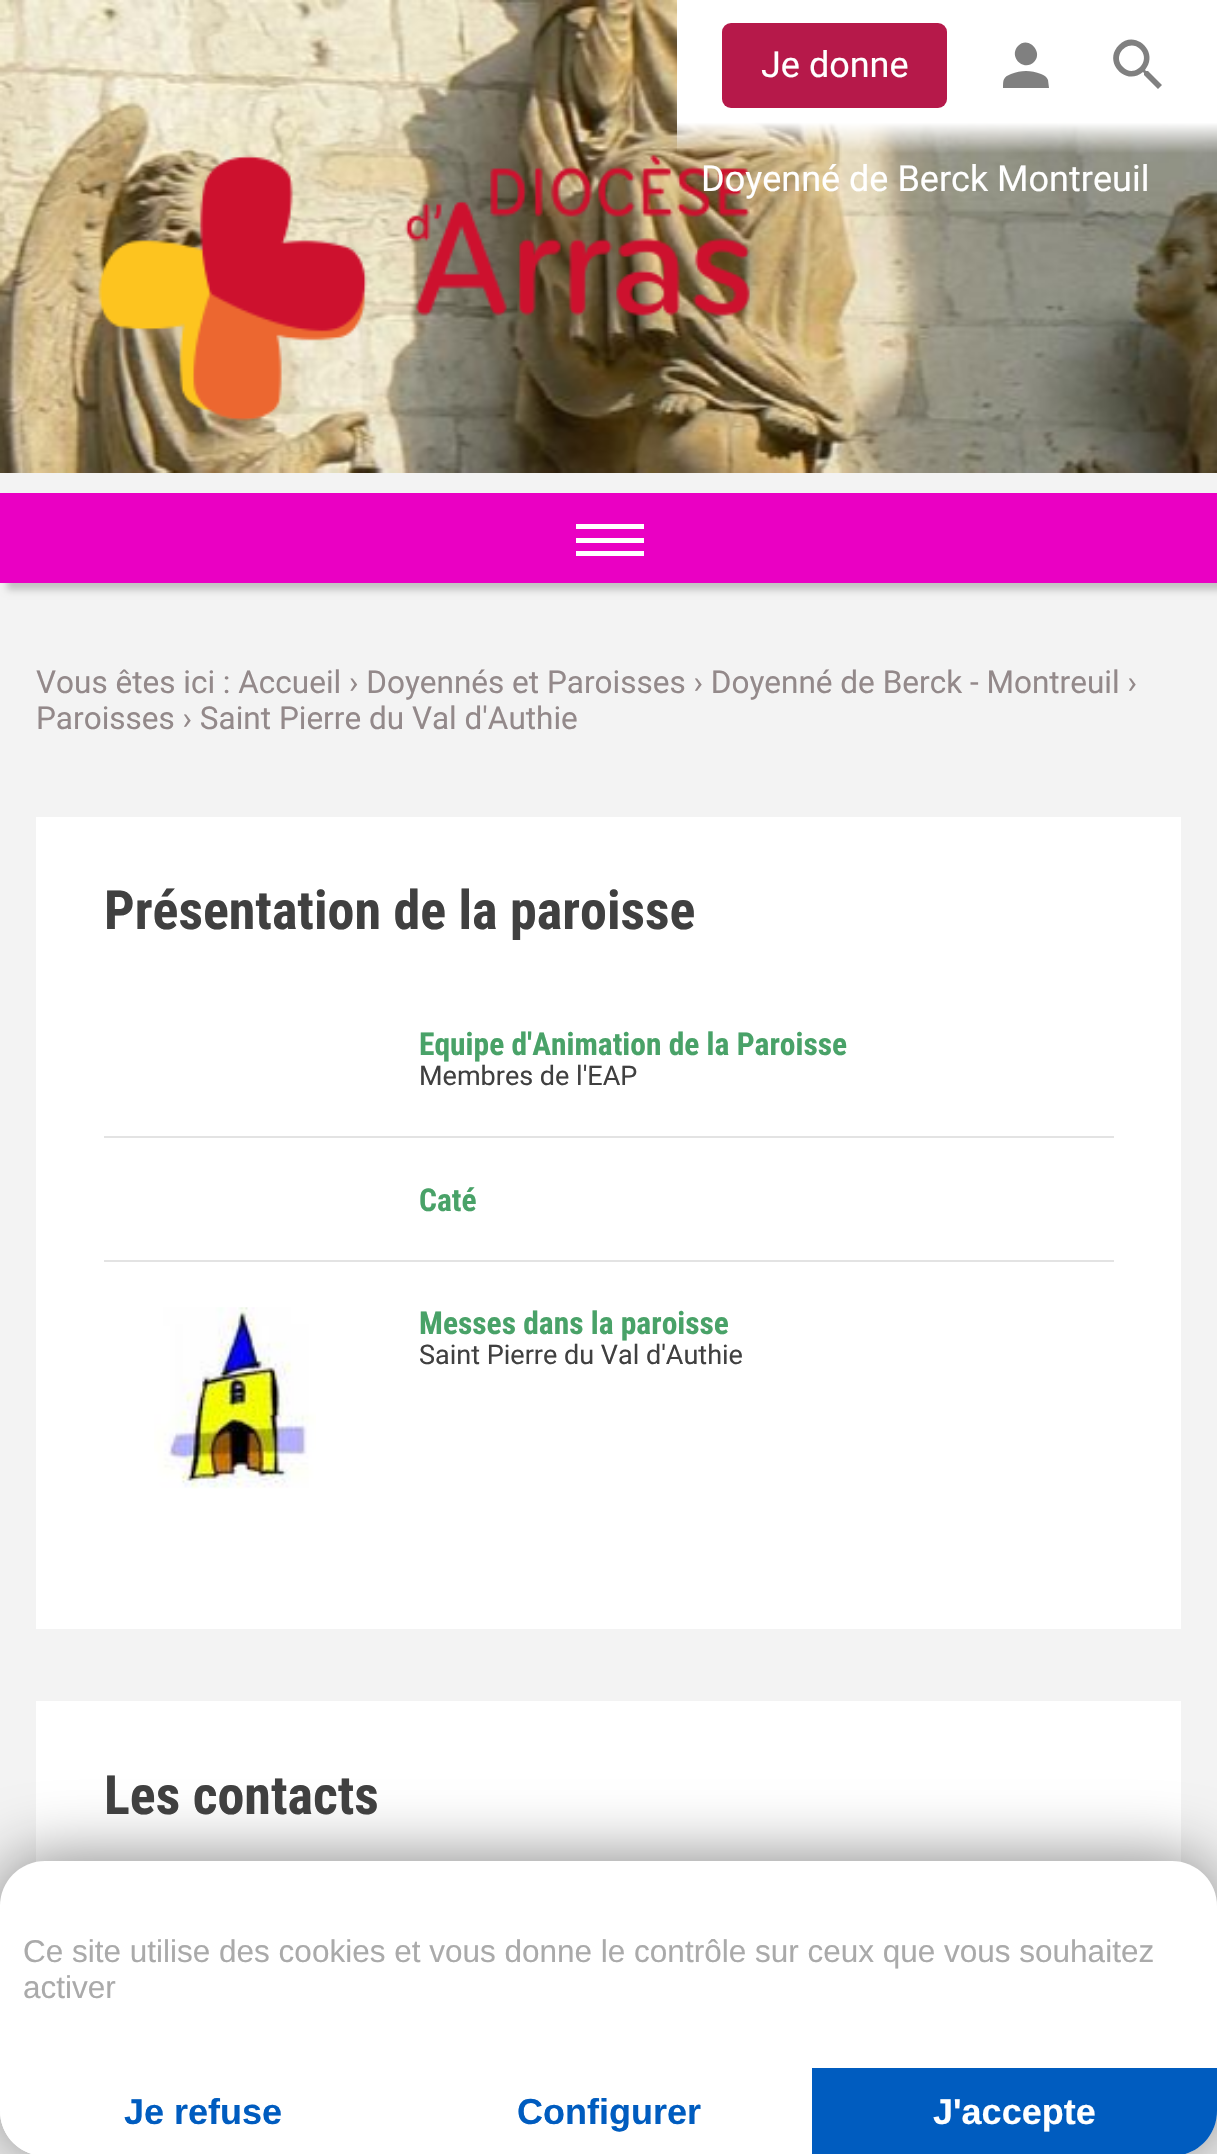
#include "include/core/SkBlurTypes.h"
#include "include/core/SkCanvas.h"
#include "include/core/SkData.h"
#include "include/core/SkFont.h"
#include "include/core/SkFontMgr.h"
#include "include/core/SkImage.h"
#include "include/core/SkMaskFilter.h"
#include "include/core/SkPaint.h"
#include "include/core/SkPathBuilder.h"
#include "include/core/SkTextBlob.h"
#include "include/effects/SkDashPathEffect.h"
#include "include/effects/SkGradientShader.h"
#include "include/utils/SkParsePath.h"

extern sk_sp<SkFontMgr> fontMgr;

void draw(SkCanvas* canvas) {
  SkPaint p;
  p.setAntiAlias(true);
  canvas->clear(SkColorSetRGB(243, 243, 243));
  canvas->drawImageRect(SkImages::DeferredFromEncodedData(SkData::MakeFromFileName("images/1.png")), SkRect::MakeLTRB(0, 0, 1217, 473), SkSamplingOptions());
  p.setColor(SkColorSetRGB(182, 25, 74));
  canvas->drawRoundRect(SkRect::MakeLTRB(722, 23, 947, 108), 9, 9, p);
  p.setColor(SkColorSetRGB(128, 128, 128));
  canvas->drawPath(SkPathBuilder().moveTo(1011, 74).cubicTo(1021, 70, 1031, 70, 1041, 74).cubicTo(1044, 75, 1047, 77, 1048, 80).lineTo(1049, 88).lineTo(1003, 88).cubicTo(1003, 80, 1003, 77, 1011, 74).close().moveTo(1034, 62).cubicTo(1024, 72, 1008, 57, 1018, 46).cubicTo(1028, 35, 1044, 52, 1034, 62).close().detach(), p);
  canvas->drawPath(SkPathBuilder().moveTo(1123, 67).cubicTo(1134, 79, 1152, 61, 1140, 49).cubicTo(1129, 38, 1111, 55, 1123, 67).close().moveTo(1148, 71).lineTo(1162, 85).lineTo(1158, 89).lineTo(1144, 75).lineTo(1144, 73).lineTo(1143, 72).cubicTo(1126, 87, 1102, 62, 1119, 45).cubicTo(1135, 29, 1160, 52, 1145, 70).lineTo(1146, 71).close().detach(), p);
  canvas->drawImageRect(SkImages::DeferredFromEncodedData(SkData::MakeFromFileName("images/2.png")), SkRect::MakeLTRB(98, 154, 750, 422), SkSamplingOptions());
  p.setColor(SkColorSetRGB(234, 0, 195));
  canvas->drawRect(SkRect::MakeLTRB(0, 493, 1217, 583), p);
  canvas->save();
  canvas->clipPath(SkPathBuilder(SkPathFillType::kEvenOdd).moveTo(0, 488).lineTo(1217, 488).lineTo(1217, 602).lineTo(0, 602).close().moveTo(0, 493).lineTo(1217, 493).lineTo(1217, 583).lineTo(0, 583).close().detach(), true);
  p.setColor(SkColorSetARGB(51, 0, 0, 0));
  p.setMaskFilter(SkMaskFilter::MakeBlur(kNormal_SkBlurStyle, 3.5f));
  canvas->drawRect(SkRect::MakeLTRB(7, 500, 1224, 590), p);
  p.setMaskFilter(nullptr);
  canvas->restore();
  p.setColor(SK_ColorWHITE);
  canvas->drawRect(SkRect::MakeLTRB(576, 538, 644, 543), p);
  canvas->drawRect(SkRect::MakeLTRB(576, 524, 644, 529), p);
  canvas->drawRect(SkRect::MakeLTRB(576, 551, 644, 556), p);
  canvas->drawRect(SkRect::MakeLTRB(36, 817, 1181, 1629), p);
  p.setColor(SkColorSetRGB(227, 227, 227));
  canvas->drawRect(SkRect::MakeLTRB(104, 1136, 1114, 1138), p);
  canvas->drawRect(SkRect::MakeLTRB(104, 1260, 1114, 1262), p);
  canvas->drawImageRect(SkImages::DeferredFromEncodedData(SkData::MakeFromFileName("images/3.png")), SkRect::MakeLTRB(154, 1307, 316, 1489), SkSamplingOptions());
  p.setColor(SK_ColorWHITE);
  canvas->drawRect(SkRect::MakeLTRB(36, 1701, 1181, 1862), p);
  p.setColor(SkColorSetARGB(128, 0, 0, 0));
  p.setMaskFilter(SkMaskFilter::MakeBlur(kNormal_SkBlurStyle, 34));
  canvas->drawRoundRect(SkRect::MakeLTRB(0, 1861, 1217, 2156), 45, 45, p);
  p.setMaskFilter(nullptr);
  p.setColor(SK_ColorWHITE);
  canvas->drawRoundRect(SkRect::MakeLTRB(0, 1861, 1217, 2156), 45, 45, p);
  canvas->drawPath(SkPathBuilder().moveTo(0, 2068).lineTo(405, 2068).lineTo(405, 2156).lineTo(45, 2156).cubicTo(20, 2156, 0, 2136, 0, 2111).close().detach(), p);
  p.setColor(SkColorSetRGB(0, 92, 191));
  canvas->drawPath(SkPathBuilder().moveTo(812, 2068).lineTo(1217, 2068).lineTo(1217, 2111).cubicTo(1217, 2136, 1197, 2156, 1172, 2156).lineTo(812, 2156).close().detach(), p);
  SkFont font1(fontMgr->matchFamilyStyle("Roboto", SkFontStyle::Normal()), 36);
  font1.setSubpixel(true);
  p.setColor(SK_ColorWHITE);
  canvas->drawString("Je donne", 761, 77, font1, p);
  canvas->drawString("Doyenné de Berck Montreuil", 701, 191, font1, p);
  SkFont font2(fontMgr->matchFamilyStyle("Roboto", SkFontStyle::Normal()), 31.5f);
  font2.setSubpixel(true);
  p.setColor(SkColorSetRGB(147, 137, 138));
  canvas->drawString("Vous êtes ici : Accueil › Doyennés et Paroisses › Doyenné de Berck - Montreuil ›", 36, 693, font2, p);
  canvas->drawString("Paroisses › Saint Pierre du Val d'Authie", 36, 729, font2, p);
  SkFont font3(fontMgr->matchFamilyStyle("Roboto Condensed", SkFontStyle::Bold()), 54);
  font3.setSubpixel(true);
  p.setColor(SkColorSetRGB(64, 64, 64));
  canvas->drawString("Présentation de la paroisse", 104, 929, font3, p);
  SkFont font4(fontMgr->matchFamilyStyle("Roboto Condensed", SkFontStyle::Bold()), 31.5f);
  font4.setSubpixel(true);
  p.setColor(SkColorSetRGB(73, 162, 104));
  canvas->drawString("Equipe d'Animation de la Paroisse", 419, 1055, font4, p);
  SkFont font5(fontMgr->matchFamilyStyle("Roboto", SkFontStyle::Normal()), 27);
  font5.setSubpixel(true);
  p.setColor(SkColorSetRGB(64, 64, 64));
  canvas->drawString("Membres de l'EAP", 419, 1085, font5, p);
  p.setColor(SkColorSetRGB(73, 162, 104));
  canvas->drawString("Caté", 419, 1211, font4, p);
  canvas->drawString("Messes dans la paroisse", 419, 1334, font4, p);
  p.setColor(SkColorSetRGB(64, 64, 64));
  canvas->drawString("Saint Pierre du Val d'Authie", 419, 1364, font5, p);
  canvas->drawString("Les contacts", 104, 1814, font3, p);
  SkFont font6(fontMgr->matchFamilyStyle("Liberation Sans", SkFontStyle::Normal()), 31.5f);
  font6.setSubpixel(true);
  p.setColor(SkColorSetRGB(170, 170, 170));
  canvas->drawString("Ce site utilise des cookies et vous donne le contrôle sur ceux que vous souhaitez", 23, 1962, font6, p);
  canvas->drawString("activer", 23, 1998, font6, p);
  SkFont font7(fontMgr->matchFamilyStyle("Liberation Sans", SkFontStyle::Bold()), 36);
  font7.setSubpixel(true);
  p.setColor(SkColorSetRGB(0, 92, 191));
  canvas->drawString("Je refuse", 124, 2124, font7, p);
  canvas->drawString("Configurer", 517, 2124, font7, p);
  p.setColor(SK_ColorWHITE);
  canvas->drawString("J'accepte", 933, 2124, font7, p);
}
